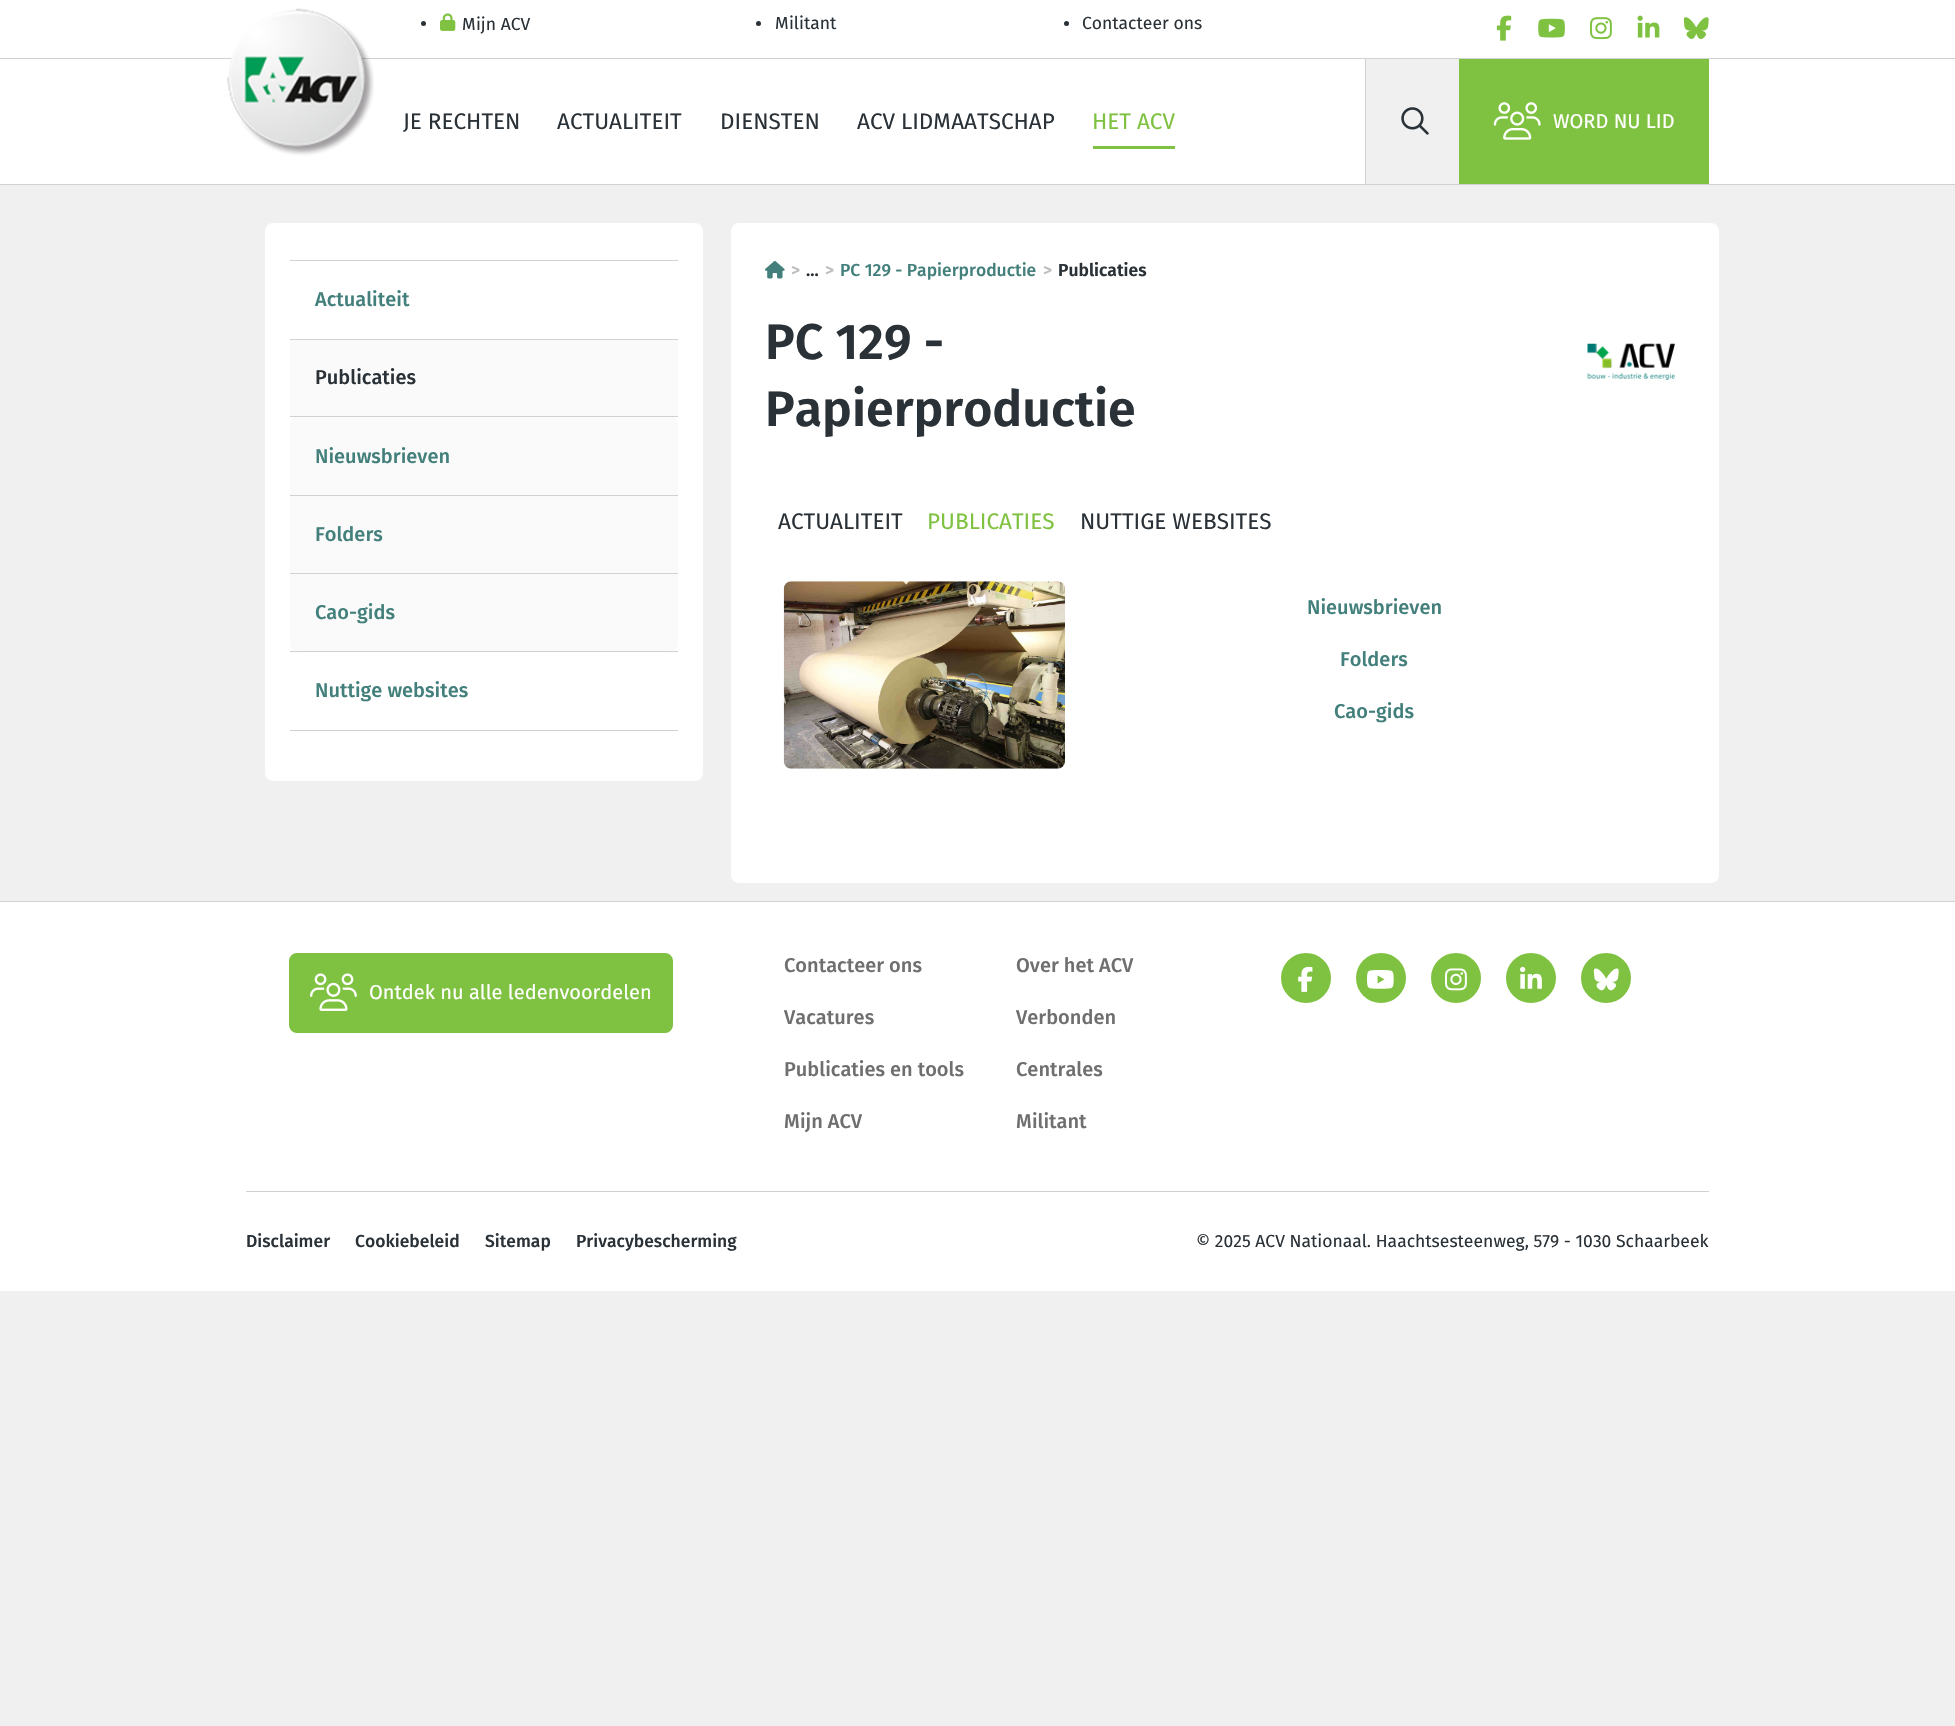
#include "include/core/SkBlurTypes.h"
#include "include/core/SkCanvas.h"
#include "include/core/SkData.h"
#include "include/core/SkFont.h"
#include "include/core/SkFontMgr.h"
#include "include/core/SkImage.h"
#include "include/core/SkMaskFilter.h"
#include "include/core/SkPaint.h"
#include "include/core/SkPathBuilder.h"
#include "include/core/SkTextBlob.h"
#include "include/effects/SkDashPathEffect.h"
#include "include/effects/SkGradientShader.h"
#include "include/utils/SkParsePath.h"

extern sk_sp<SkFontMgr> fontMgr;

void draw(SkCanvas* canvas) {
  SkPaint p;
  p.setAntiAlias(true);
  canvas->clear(SkColorSetRGB(240, 240, 240));
  p.setColor(SK_ColorWHITE);
  canvas->drawRect(SkRect::MakeLTRB(0, 0, 1955, 184), p);
  p.setColor(SkColorSetRGB(209, 209, 209));
  canvas->drawRect(SkRect::MakeLTRB(0, 184, 1955, 185), p);
  canvas->drawRect(SkRect::MakeLTRB(0, 58, 1955, 59), p);
  p.setColor(SkColorSetRGB(42, 50, 56));
  canvas->drawCircle(423.5f, 23.5f, 2.5f, p);
  canvas->drawImageRect(SkImages::DeferredFromEncodedData(SkData::MakeFromFileName("images/1.png")), SkRect::MakeLTRB(440, 13, 456, 31), SkSamplingOptions());
  canvas->drawCircle(758.5f, 23.5f, 2.5f, p);
  canvas->drawCircle(1066.5f, 23.5f, 2.5f, p);
  canvas->drawImageRect(SkImages::DeferredFromEncodedData(SkData::MakeFromFileName("images/2.png")), SkRect::MakeLTRB(1496, 15, 1512, 41), SkSamplingOptions());
  canvas->drawImageRect(SkImages::DeferredFromEncodedData(SkData::MakeFromFileName("images/3.png")), SkRect::MakeLTRB(1538, 18, 1565, 38), SkSamplingOptions());
  canvas->drawImageRect(SkImages::DeferredFromEncodedData(SkData::MakeFromFileName("images/4.png")), SkRect::MakeLTRB(1590, 17, 1612, 40), SkSamplingOptions());
  canvas->drawImageRect(SkImages::DeferredFromEncodedData(SkData::MakeFromFileName("images/5.png")), SkRect::MakeLTRB(1637, 15, 1660, 38), SkSamplingOptions());
  canvas->drawImageRect(SkImages::DeferredFromEncodedData(SkData::MakeFromFileName("images/6.png")), SkRect::MakeLTRB(1683, 17, 1709, 39), SkSamplingOptions());
  canvas->drawImageRect(SkImages::DeferredFromEncodedData(SkData::MakeFromFileName("images/7.png")), SkRect::MakeLTRB(227, 8, 374, 156), SkSamplingOptions());
  p.setColor(SkColorSetRGB(127, 194, 65));
  canvas->drawRect(SkRect::MakeLTRB(1093, 146, 1175, 149), p);
  p.setColor(SkColorSetRGB(240, 240, 240));
  canvas->drawRect(SkRect::MakeLTRB(1366, 59, 1459, 184), p);
  p.setColor(SkColorSetRGB(209, 209, 209));
  canvas->drawRect(SkRect::MakeLTRB(1365, 59, 1366, 184), p);
  canvas->drawImageRect(SkImages::DeferredFromEncodedData(SkData::MakeFromFileName("images/8.png")), SkRect::MakeLTRB(1401, 107, 1429, 135), SkSamplingOptions());
  p.setColor(SkColorSetRGB(127, 194, 65));
  canvas->drawRect(SkRect::MakeLTRB(1459, 59, 1709, 184), p);
  canvas->drawImageRect(SkImages::DeferredFromEncodedData(SkData::MakeFromFileName("images/9.png")), SkRect::MakeLTRB(1493, 102, 1541, 140), SkSamplingOptions());
  p.setColor(SK_ColorWHITE);
  canvas->drawRoundRect(SkRect::MakeLTRB(265, 223, 703, 781), 8, 8, p);
  p.setColor(SkColorSetRGB(209, 209, 209));
  canvas->drawRect(SkRect::MakeLTRB(290, 260, 678, 261), p);
  canvas->drawRect(SkRect::MakeLTRB(290, 730, 678, 731), p);
  canvas->drawRect(SkRect::MakeLTRB(290, 339, 678, 340), p);
  p.setColor(SkColorSetRGB(250, 250, 250));
  canvas->drawRect(SkRect::MakeLTRB(290, 340, 678, 416), p);
  canvas->drawRoundRect(SkRect::MakeLTRB(290, 416, 678, 651), 8, 8, p);
  p.setColor(SkColorSetRGB(209, 209, 209));
  canvas->drawRect(SkRect::MakeLTRB(290, 416, 678, 417), p);
  canvas->drawRect(SkRect::MakeLTRB(290, 495, 678, 496), p);
  canvas->drawRect(SkRect::MakeLTRB(290, 573, 678, 574), p);
  canvas->drawRect(SkRect::MakeLTRB(290, 651, 678, 652), p);
  p.setColor(SK_ColorWHITE);
  canvas->drawRoundRect(SkRect::MakeLTRB(731, 223, 1719, 883), 8, 8, p);
  canvas->drawImageRect(SkImages::DeferredFromEncodedData(SkData::MakeFromFileName("images/10.png")), SkRect::MakeLTRB(765, 261, 785, 279), SkSamplingOptions());
  canvas->drawImageRect(SkImages::DeferredFromEncodedData(SkData::MakeFromFileName("images/11.png")), SkRect::MakeLTRB(1587, 343, 1675, 380), SkSamplingOptions());
  canvas->drawImageRect(SkImages::DeferredFromEncodedData(SkData::MakeFromFileName("images/12.png")), SkRect::MakeLTRB(783, 581, 1065, 769), SkSamplingOptions());
  canvas->drawRect(SkRect::MakeLTRB(0, 902, 1955, 1291), p);
  p.setColor(SkColorSetRGB(209, 209, 209));
  canvas->drawRect(SkRect::MakeLTRB(0, 901, 1955, 902), p);
  p.setColor(SkColorSetRGB(127, 194, 65));
  canvas->drawRoundRect(SkRect::MakeLTRB(290.5f, 954.5f, 671.5f, 1031.5f), 6.5f, 6.5f, p);
  p.setStyle(SkPaint::kStroke_Style);
  p.setStrokeWidth(3);
  canvas->drawRoundRect(SkRect::MakeLTRB(290.5f, 954.5f, 671.5f, 1031.5f), 6.5f, 6.5f, p);
  canvas->drawImageRect(SkImages::DeferredFromEncodedData(SkData::MakeFromFileName("images/13.png")), SkRect::MakeLTRB(310, 973, 357, 1011), SkSamplingOptions());
  p.setStyle(SkPaint::kFill_Style);
  canvas->drawCircle(1306, 978, 23.5f, p);
  p.setStyle(SkPaint::kStroke_Style);
  canvas->drawCircle(1306, 978, 23.5f, p);
  canvas->drawImageRect(SkImages::DeferredFromEncodedData(SkData::MakeFromFileName("images/14.png")), SkRect::MakeLTRB(1298, 966, 1313, 992), SkSamplingOptions());
  p.setStyle(SkPaint::kFill_Style);
  canvas->drawCircle(1381, 978, 23.5f, p);
  p.setStyle(SkPaint::kStroke_Style);
  canvas->drawCircle(1381, 978, 23.5f, p);
  canvas->drawImageRect(SkImages::DeferredFromEncodedData(SkData::MakeFromFileName("images/15.png")), SkRect::MakeLTRB(1367, 970, 1394, 989), SkSamplingOptions());
  p.setStyle(SkPaint::kFill_Style);
  canvas->drawCircle(1456, 978, 23.5f, p);
  p.setStyle(SkPaint::kStroke_Style);
  canvas->drawCircle(1456, 978, 23.5f, p);
  canvas->drawImageRect(SkImages::DeferredFromEncodedData(SkData::MakeFromFileName("images/16.png")), SkRect::MakeLTRB(1445, 968, 1467, 991), SkSamplingOptions());
  p.setStyle(SkPaint::kFill_Style);
  canvas->drawCircle(1531, 978, 23.5f, p);
  p.setStyle(SkPaint::kStroke_Style);
  canvas->drawCircle(1531, 978, 23.5f, p);
  canvas->drawImageRect(SkImages::DeferredFromEncodedData(SkData::MakeFromFileName("images/17.png")), SkRect::MakeLTRB(1520, 966, 1542, 989), SkSamplingOptions());
  p.setStyle(SkPaint::kFill_Style);
  canvas->drawCircle(1606, 978, 23.5f, p);
  p.setStyle(SkPaint::kStroke_Style);
  canvas->drawCircle(1606, 978, 23.5f, p);
  canvas->drawImageRect(SkImages::DeferredFromEncodedData(SkData::MakeFromFileName("images/18.png")), SkRect::MakeLTRB(1593, 968, 1619, 991), SkSamplingOptions());
  p.setStyle(SkPaint::kFill_Style);
  p.setColor(SkColorSetRGB(209, 209, 209));
  canvas->drawRect(SkRect::MakeLTRB(246, 1191, 1709, 1192), p);
  SkFont font1(fontMgr->matchFamilyStyle("Fira Sans", SkFontStyle::Normal()), 17.5f);
  font1.setSubpixel(true);
  p.setColor(SkColorSetRGB(42, 50, 56));
  canvas->drawString("Mijn ACV", 462, 30, font1, p);
  canvas->drawString("Militant", 775, 29, font1, p);
  canvas->drawString("Contacteer ons", 1082, 29, font1, p);
  SkFont font2(fontMgr->matchFamilyStyle("Fira Sans", SkFontStyle::Normal()), 22.5f);
  font2.setSubpixel(true);
  canvas->drawString("JE RECHTEN", 403, 129, font2, p);
  canvas->drawString("ACTUALITEIT", 557, 129, font2, p);
  canvas->drawString("DIENSTEN", 720, 129, font2, p);
  canvas->drawString("ACV LIDMAATSCHAP", 857, 129, font2, p);
  p.setColor(SkColorSetRGB(127, 194, 65));
  canvas->drawString("HET ACV", 1092, 129, font2, p);
  SkFont font3(fontMgr->matchFamilyStyle("Fira Sans", SkFontStyle::Normal()), 20);
  font3.setSubpixel(true);
  p.setColor(SK_ColorWHITE);
  canvas->drawString("WORD NU LID", 1553, 128, font3, p);
  SkFont font4(fontMgr->matchFamilyStyle("Fira Sans", SkFontStyle(500, SkFontStyle::kNormal_Width, SkFontStyle::kUpright_Slant)), 20);
  font4.setSubpixel(true);
  p.setColor(SkColorSetRGB(67, 128, 124));
  canvas->drawString("Actualiteit", 315, 306, font4, p);
  p.setColor(SkColorSetRGB(42, 50, 56));
  canvas->drawString("Publicaties", 315, 384, font4, p);
  p.setColor(SkColorSetRGB(67, 128, 124));
  canvas->drawString("Nieuwsbrieven", 315, 463, font4, p);
  canvas->drawString("Folders", 315, 541, font4, p);
  canvas->drawString("Cao-gids", 315, 619, font4, p);
  canvas->drawString("Nuttige websites", 315, 697, font4, p);
  SkFont font5(fontMgr->matchFamilyStyle("Fira Sans", SkFontStyle(600, SkFontStyle::kNormal_Width, SkFontStyle::kUpright_Slant)), 17.5f);
  font5.setSubpixel(true);
  p.setColor(SkColorSetRGB(190, 190, 190));
  canvas->drawString(">", 791, 276, font5, p);
  p.setColor(SkColorSetRGB(42, 50, 56));
  canvas->drawString("...", 806, 276, font5, p);
  p.setColor(SkColorSetRGB(190, 190, 190));
  canvas->drawString(">", 825, 276, font5, p);
  SkFont font6(fontMgr->matchFamilyStyle("Fira Sans", SkFontStyle(500, SkFontStyle::kNormal_Width, SkFontStyle::kUpright_Slant)), 17.5f);
  font6.setSubpixel(true);
  p.setColor(SkColorSetRGB(67, 128, 124));
  canvas->drawString("PC 129 - Papierproductie", 840, 276, font6, p);
  p.setColor(SkColorSetRGB(190, 190, 190));
  canvas->drawString(">", 1043, 276, font5, p);
  p.setColor(SkColorSetRGB(42, 50, 56));
  canvas->drawString("Publicaties", 1058, 276, font5, p);
  SkFont font7(fontMgr->matchFamilyStyle("Fira Sans", SkFontStyle(600, SkFontStyle::kNormal_Width, SkFontStyle::kUpright_Slant)), 50);
  font7.setSubpixel(true);
  canvas->drawString("PC 129 -", 765, 359, font7, p);
  canvas->drawString("Papierproductie", 765, 426, font7, p);
  canvas->drawString("ACTUALITEIT", 778, 529, font2, p);
  p.setColor(SkColorSetRGB(127, 194, 65));
  canvas->drawString("PUBLICATIES", 927, 529, font2, p);
  p.setColor(SkColorSetRGB(42, 50, 56));
  canvas->drawString("NUTTIGE WEBSITES", 1080, 529, font2, p);
  p.setColor(SkColorSetRGB(67, 128, 124));
  canvas->drawString("Nieuwsbrieven", 1307, 614, font4, p);
  canvas->drawString("Folders", 1340, 666, font4, p);
  canvas->drawString("Cao-gids", 1334, 718, font4, p);
  p.setColor(SK_ColorWHITE);
  canvas->drawString("Ontdek nu alle ledenvoordelen", 369, 999, font3, p);
  p.setColor(SkColorSetRGB(111, 111, 111));
  canvas->drawString("Contacteer ons", 784, 972, font4, p);
  canvas->drawString("Over het ACV", 1016, 972, font4, p);
  canvas->drawString("Vacatures", 784, 1024, font4, p);
  canvas->drawString("Verbonden", 1016, 1024, font4, p);
  canvas->drawString("Publicaties en tools", 784, 1076, font4, p);
  canvas->drawString("Centrales", 1016, 1076, font4, p);
  canvas->drawString("Mijn ACV", 784, 1128, font4, p);
  canvas->drawString("Militant", 1016, 1128, font4, p);
  p.setColor(SkColorSetRGB(42, 50, 56));
  canvas->drawString("Disclaimer", 246, 1247, font6, p);
  canvas->drawString("Cookiebeleid", 355, 1247, font6, p);
  canvas->drawString("Sitemap", 485, 1247, font6, p);
  canvas->drawString("Privacybescherming", 576, 1247, font6, p);
  canvas->drawString("© 2025 ACV Nationaal. Haachtsesteenweg, 579 - 1030 Schaarbeek", 1196, 1247, font1, p);
}
